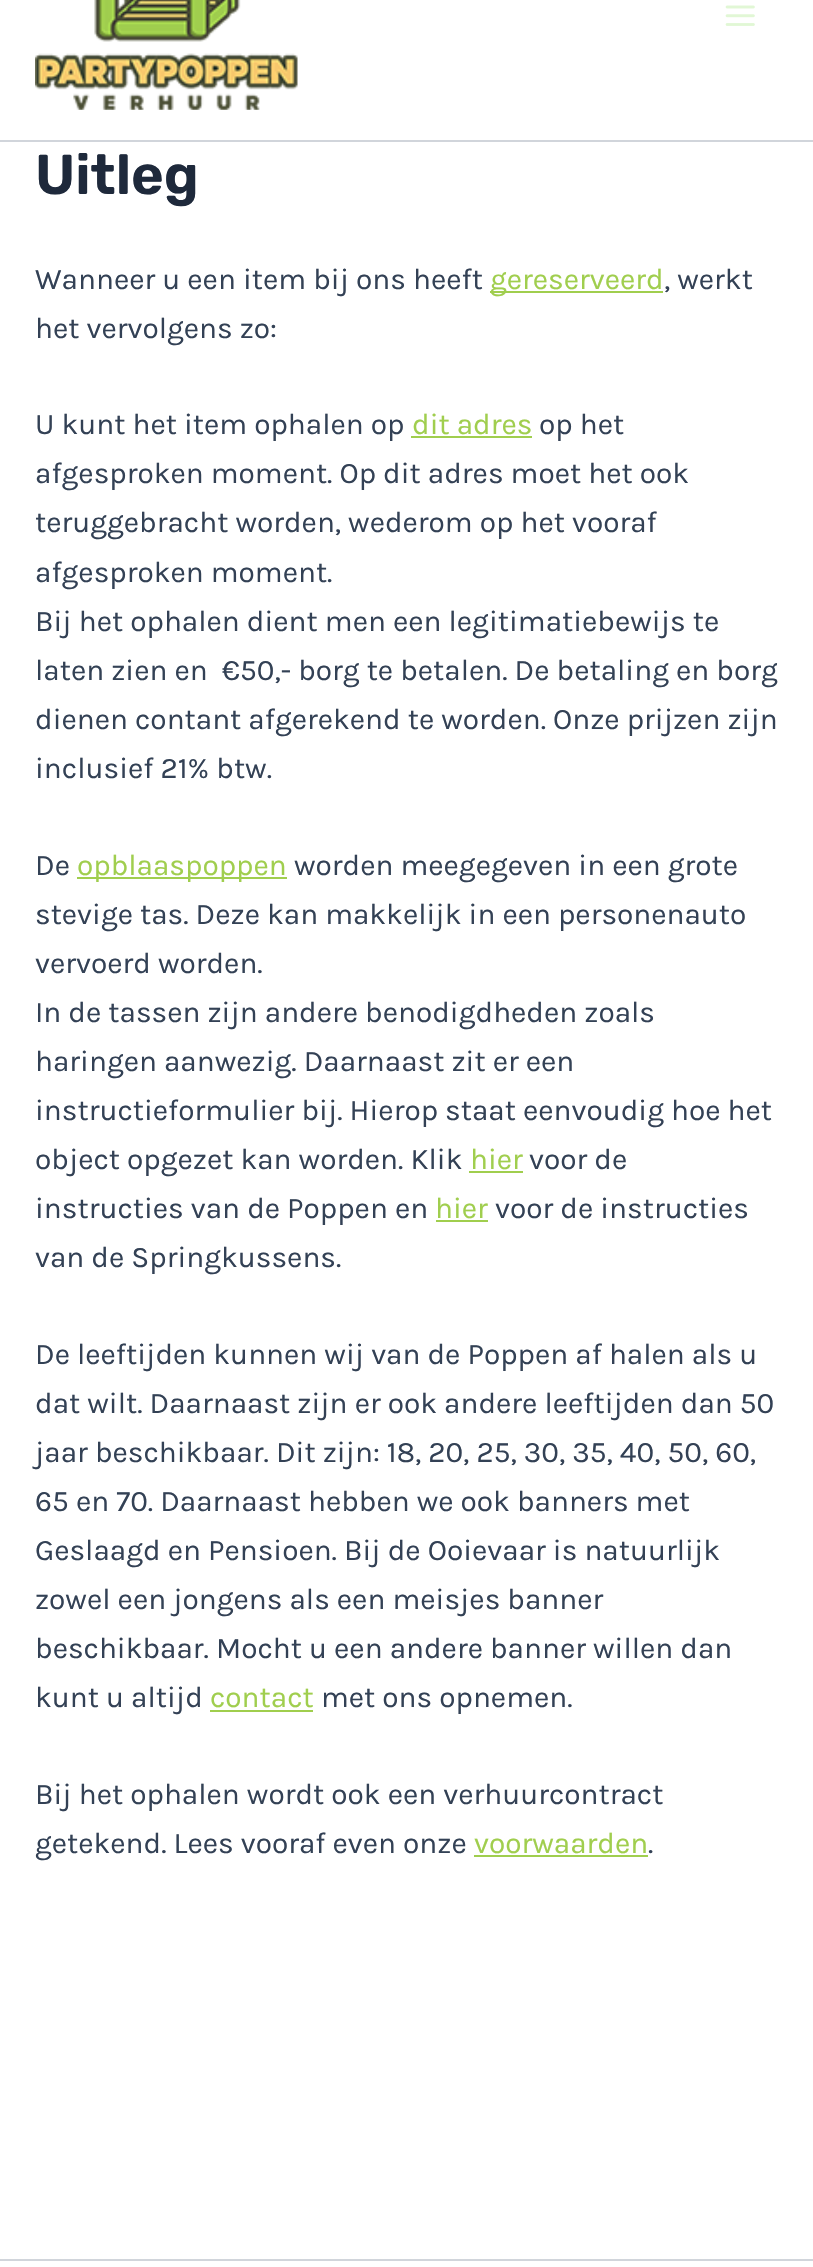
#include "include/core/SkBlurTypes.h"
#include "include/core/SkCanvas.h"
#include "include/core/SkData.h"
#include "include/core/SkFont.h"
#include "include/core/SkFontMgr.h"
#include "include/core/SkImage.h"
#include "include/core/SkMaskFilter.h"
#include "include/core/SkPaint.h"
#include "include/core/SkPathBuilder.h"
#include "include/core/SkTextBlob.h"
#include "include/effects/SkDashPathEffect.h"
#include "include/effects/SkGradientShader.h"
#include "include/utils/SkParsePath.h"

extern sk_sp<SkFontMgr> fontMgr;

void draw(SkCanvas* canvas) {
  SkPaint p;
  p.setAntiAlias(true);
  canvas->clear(SK_ColorWHITE);
  p.setColor(SkColorSetRGB(209, 213, 219));
  canvas->drawRect(SkRect::MakeLTRB(0, 140, 813, 142), p);
  canvas->drawImageRect(SkImages::DeferredFromEncodedData(SkData::MakeFromFileName("images/1.png")), SkRect::MakeLTRB(35, 0, 298, 110), SkSamplingOptions());
  canvas->drawImageRect(SkImages::DeferredFromEncodedData(SkData::MakeFromFileName("images/2.png")), SkRect::MakeLTRB(725, 5, 755, 26), SkSamplingOptions());
  p.setColor(SkColorSetRGB(160, 206, 78));
  canvas->drawRect(SkRect::MakeLTRB(490, 291, 663, 293), p);
  canvas->drawRect(SkRect::MakeLTRB(411, 436, 532, 438), p);
  canvas->drawRect(SkRect::MakeLTRB(77, 877, 287, 879), p);
  canvas->drawRect(SkRect::MakeLTRB(469, 1171, 523, 1173), p);
  canvas->drawRect(SkRect::MakeLTRB(436, 1220, 488, 1222), p);
  canvas->drawRect(SkRect::MakeLTRB(210, 1710, 313, 1712), p);
  canvas->drawRect(SkRect::MakeLTRB(474, 1855, 648, 1857), p);
  p.setColor(SkColorSetRGB(209, 213, 219));
  canvas->drawRect(SkRect::MakeLTRB(0, 2259, 813, 2261), p);
  SkFont font1(fontMgr->matchFamilyStyle("Rubik", SkFontStyle(600, SkFontStyle::kNormal_Width, SkFontStyle::kUpright_Slant)), 56);
  font1.setSubpixel(true);
  p.setColor(SkColorSetRGB(30, 41, 59));
  canvas->drawString("Uitleg", 35, 194, font1, p);
  SkFont font2(fontMgr->matchFamilyStyle("Karla", SkFontStyle::Normal()), 29.75f);
  font2.setSubpixel(true);
  p.setColor(SkColorSetRGB(51, 65, 85));
  canvas->drawString("Wanneer u een item bij ons heeft", 35, 289, font2, p);
  p.setColor(SkColorSetRGB(160, 206, 78));
  canvas->drawString("gereserveerd", 490, 289, font2, p);
  p.setColor(SkColorSetRGB(51, 65, 85));
  canvas->drawString(", werkt", 664, 289, font2, p);
  canvas->drawString("het vervolgens zo:", 35, 338, font2, p);
  canvas->drawString("U kunt het item ophalen op", 35, 434, font2, p);
  p.setColor(SkColorSetRGB(160, 206, 78));
  canvas->drawString("dit adres", 412, 434, font2, p);
  p.setColor(SkColorSetRGB(51, 65, 85));
  canvas->drawString("op het", 539, 434, font2, p);
  canvas->drawString("afgesproken moment. Op dit adres moet het ook", 35, 483, font2, p);
  canvas->drawString("teruggebracht worden, wederom op het vooraf", 35, 532, font2, p);
  canvas->drawString("afgesproken moment.", 35, 582, font2, p);
  canvas->drawString("Bij het ophalen dient men een legitimatiebewijs te", 35, 631, font2, p);
  canvas->drawString("laten zien en  €50,- borg te betalen. De betaling en borg", 35, 680, font2, p);
  canvas->drawString("dienen contant afgerekend te worden. Onze prijzen zijn", 35, 729, font2, p);
  canvas->drawString("inclusief 21% btw.", 35, 778, font2, p);
  canvas->drawString("De", 35, 875, font2, p);
  p.setColor(SkColorSetRGB(160, 206, 78));
  canvas->drawString("opblaaspoppen", 77, 875, font2, p);
  p.setColor(SkColorSetRGB(51, 65, 85));
  canvas->drawString("worden meegegeven in een grote", 294, 875, font2, p);
  canvas->drawString("stevige tas. Deze kan makkelijk in een personenauto", 35, 924, font2, p);
  canvas->drawString("vervoerd worden.", 35, 973, font2, p);
  canvas->drawString("In de tassen zijn andere benodigdheden zoals", 35, 1022, font2, p);
  canvas->drawString("haringen aanwezig. Daarnaast zit er een", 35, 1071, font2, p);
  canvas->drawString("instructieformulier bij. Hierop staat eenvoudig hoe het", 35, 1120, font2, p);
  canvas->drawString("object opgezet kan worden. Klik", 35, 1169, font2, p);
  p.setColor(SkColorSetRGB(160, 206, 78));
  canvas->drawString("hier", 470, 1169, font2, p);
  p.setColor(SkColorSetRGB(51, 65, 85));
  canvas->drawString("voor de", 529, 1169, font2, p);
  canvas->drawString("instructies van de Poppen en", 35, 1218, font2, p);
  p.setColor(SkColorSetRGB(160, 206, 78));
  canvas->drawString("hier", 435, 1218, font2, p);
  p.setColor(SkColorSetRGB(51, 65, 85));
  canvas->drawString("voor de instructies", 495, 1218, font2, p);
  canvas->drawString("van de Springkussens.", 35, 1267, font2, p);
  canvas->drawString("De leeftijden kunnen wij van de Poppen af halen als u", 35, 1364, font2, p);
  canvas->drawString("dat wilt. Daarnaast zijn er ook andere leeftijden dan 50", 35, 1413, font2, p);
  canvas->drawString("jaar beschikbaar. Dit zijn: 18, 20, 25, 30, 35, 40, 50, 60,", 35, 1462, font2, p);
  canvas->drawString("65 en 70. Daarnaast hebben we ook banners met", 35, 1511, font2, p);
  canvas->drawString("Geslaagd en Pensioen. Bij de Ooievaar is natuurlijk", 35, 1560, font2, p);
  canvas->drawString("zowel een jongens als een meisjes banner", 35, 1609, font2, p);
  canvas->drawString("beschikbaar. Mocht u een andere banner willen dan", 35, 1658, font2, p);
  canvas->drawString("kunt u altijd", 35, 1707, font2, p);
  p.setColor(SkColorSetRGB(160, 206, 78));
  canvas->drawString("contact", 210, 1707, font2, p);
  p.setColor(SkColorSetRGB(51, 65, 85));
  canvas->drawString("met ons opnemen.", 321, 1707, font2, p);
  canvas->drawString("Bij het ophalen wordt ook een verhuurcontract", 35, 1804, font2, p);
  canvas->drawString("getekend. Lees vooraf even onze", 35, 1853, font2, p);
  p.setColor(SkColorSetRGB(160, 206, 78));
  canvas->drawString("voorwaarden", 474, 1853, font2, p);
  p.setColor(SkColorSetRGB(51, 65, 85));
  canvas->drawString(".", 648, 1853, font2, p);
}
